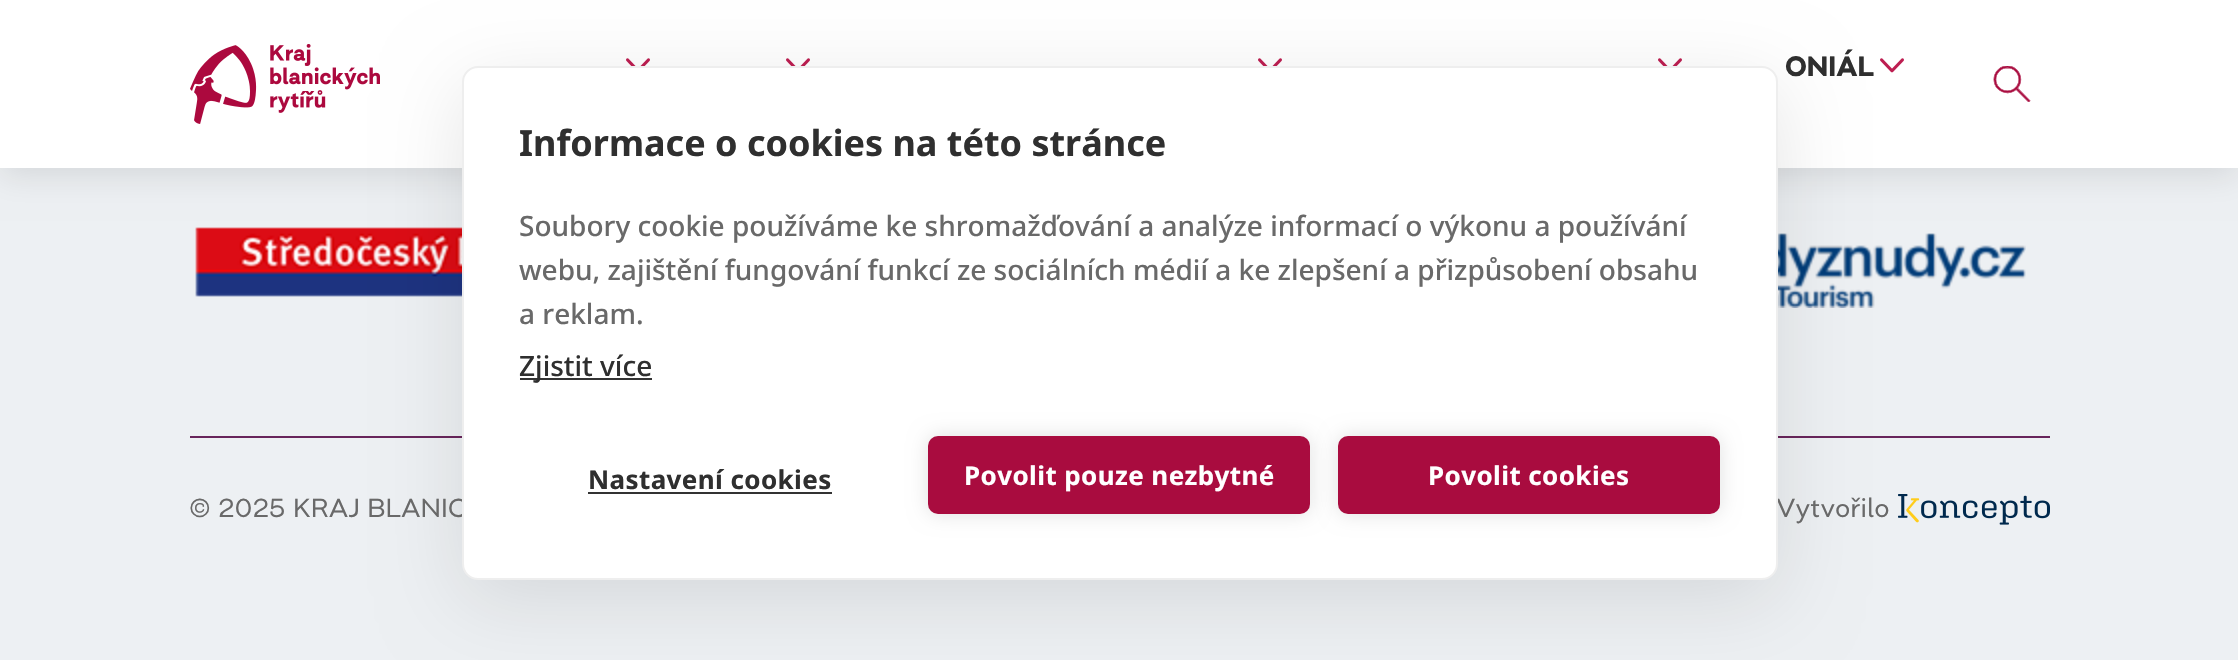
#include "include/core/SkBlurTypes.h"
#include "include/core/SkCanvas.h"
#include "include/core/SkData.h"
#include "include/core/SkFont.h"
#include "include/core/SkFontMgr.h"
#include "include/core/SkImage.h"
#include "include/core/SkMaskFilter.h"
#include "include/core/SkPaint.h"
#include "include/core/SkPathBuilder.h"
#include "include/core/SkTextBlob.h"
#include "include/effects/SkDashPathEffect.h"
#include "include/effects/SkGradientShader.h"
#include "include/utils/SkParsePath.h"

extern sk_sp<SkFontMgr> fontMgr;

void draw(SkCanvas* canvas) {
  SkPaint p;
  p.setAntiAlias(true);
  auto spacedText = [&](const char* s, float x, float y, const SkFont& font, const SkPaint& ink, float letter, float word) {
    std::vector<SkGlyphID> glyphs(font.countText(s, strlen(s), SkTextEncoding::kUTF8));
    std::vector<float> xs(glyphs.size());
    font.textToGlyphs(s, strlen(s), SkTextEncoding::kUTF8, glyphs);
    font.getXPos(glyphs, xs, x);
    float extra = 0;
    for (size_t i = 0; i < glyphs.size(); i++) {
      xs[i] += extra;
      extra += letter + word * (glyphs[i] == font.unicharToGlyph(' '));
    }
    canvas->drawTextBlob(SkTextBlob::MakeFromPosHGlyphs(glyphs, xs, y, font), 0, 0, ink);
  };
  canvas->clear(SkColorSetRGB(237, 240, 243));
  p.setColor(SkColorSetARGB(26, 0, 0, 0));
  p.setMaskFilter(SkMaskFilter::MakeBlur(kNormal_SkBlurStyle, 15));
  canvas->drawRect(SkRect::MakeLTRB(0, 8, 2238, 176), p);
  p.setMaskFilter(nullptr);
  p.setColor(SK_ColorWHITE);
  canvas->drawRect(SkRect::MakeLTRB(0, 0, 2238, 168), p);
  canvas->drawImageRect(SkImages::DeferredFromEncodedData(SkData::MakeFromFileName("images/1.png")), SkRect::MakeLTRB(190, 44, 380, 124), SkSamplingOptions());
  canvas->drawImageRect(SkImages::DeferredFromEncodedData(SkData::MakeFromFileName("images/2.png")), SkRect::MakeLTRB(626, 58, 650, 66), SkSamplingOptions());
  canvas->drawImageRect(SkImages::DeferredFromEncodedData(SkData::MakeFromFileName("images/2.png")), SkRect::MakeLTRB(786, 58, 810, 66), SkSamplingOptions());
  canvas->drawImageRect(SkImages::DeferredFromEncodedData(SkData::MakeFromFileName("images/2.png")), SkRect::MakeLTRB(1258, 58, 1282, 66), SkSamplingOptions());
  canvas->drawImageRect(SkImages::DeferredFromEncodedData(SkData::MakeFromFileName("images/2.png")), SkRect::MakeLTRB(1658, 58, 1682, 66), SkSamplingOptions());
  canvas->drawImageRect(SkImages::DeferredFromEncodedData(SkData::MakeFromFileName("images/3.png")), SkRect::MakeLTRB(1880, 58, 1904, 73), SkSamplingOptions());
  canvas->drawImageRect(SkImages::DeferredFromEncodedData(SkData::MakeFromFileName("images/4.png")), SkRect::MakeLTRB(1993, 66, 2031, 102), SkSamplingOptions());
  canvas->drawImageRect(SkImages::DeferredFromEncodedData(SkData::MakeFromFileName("images/5.png")), SkRect::MakeLTRB(195, 227, 462, 297), SkSamplingOptions());
  canvas->drawImageRect(SkImages::DeferredFromEncodedData(SkData::MakeFromFileName("images/6.png")), SkRect::MakeLTRB(1778, 233, 2026, 308), SkSamplingOptions());
  p.setColor(SkColorSetRGB(104, 37, 91));
  canvas->drawRect(SkRect::MakeLTRB(190, 436, 2050, 438), p);
  canvas->drawImageRect(SkImages::DeferredFromEncodedData(SkData::MakeFromFileName("images/7.png")), SkRect::MakeLTRB(1898, 494, 2050, 525), SkSamplingOptions());
  p.setColor(SkColorSetARGB(26, 0, 0, 0));
  p.setMaskFilter(SkMaskFilter::MakeBlur(kNormal_SkBlurStyle, 40));
  canvas->drawRoundRect(SkRect::MakeLTRB(462, 86, 1778, 600), 16, 16, p);
  p.setMaskFilter(nullptr);
  SkFont font1(fontMgr->matchFamilyStyle("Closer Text", SkFontStyle::Bold()), 28);
  font1.setSubpixel(true);
  p.setColor(SkColorSetRGB(47, 47, 47));
  canvas->drawString("ONIÁL", 1785, 76, font1, p);
  SkFont font2(fontMgr->matchFamilyStyle("Closer Text", SkFontStyle::Normal()), 26);
  font2.setSubpixel(true);
  p.setColor(SkColorSetRGB(105, 105, 105));
  canvas->drawString("© 2025 KRAJ BLANIC", 189, 517, font2, p);
  canvas->drawString("Vytvořilo", 1776, 517, font2, p);
  p.setColor(SK_ColorWHITE);
  canvas->drawRoundRect(SkRect::MakeLTRB(463, 67, 1777, 579), 15, 15, p);
  p.setStyle(SkPaint::kStroke_Style);
  p.setStrokeWidth(2);
  p.setColor(SkColorSetRGB(238, 238, 238));
  canvas->drawRoundRect(SkRect::MakeLTRB(463, 67, 1777, 579), 15, 15, p);
  SkFont font3(fontMgr->matchFamilyStyle("Noto Sans", SkFontStyle::Bold()), 36);
  font3.setSubpixel(true);
  p.setStyle(SkPaint::kFill_Style);
  p.setColor(SkColorSetRGB(47, 47, 47));
  canvas->drawString("Informace o cookies na této stránce", 519, 156, font3, p);
  SkFont font4(fontMgr->matchFamilyStyle("Noto Sans", SkFontStyle(500, SkFontStyle::kNormal_Width, SkFontStyle::kUpright_Slant)), 28);
  font4.setSubpixel(true);
  p.setColor(SkColorSetRGB(105, 105, 105));
  canvas->drawString("Soubory cookie používáme ke shromažďování a analýze informací o výkonu a používání", 519, 236, font4, p);
  canvas->drawString("webu, zajištění fungování funkcí ze sociálních médií a ke zlepšení a přizpůsobení obsahu", 519, 280, font4, p);
  canvas->drawString("a reklam.", 519, 324, font4, p);
  p.setColor(SkColorSetRGB(51, 51, 51));
  canvas->drawRect(SkRect::MakeLTRB(520, 378, 652, 380), p);
  p.setColor(SkColorSetRGB(47, 47, 47));
  canvas->drawString("Zjistit více", 519, 376, font4, p);
  SkFont font5(fontMgr->matchFamilyStyle("Noto Sans", SkFontStyle::Bold()), 26);
  font5.setSubpixel(true);
  spacedText("Nastavení cookies", 588, 489, font5, p, 0.4f, 0);
  p.setColor(SkColorSetRGB(51, 51, 51));
  canvas->drawRect(SkRect::MakeLTRB(588, 492, 832, 494), p);
  p.setColor(SkColorSetARGB(31, 0, 0, 0));
  p.setMaskFilter(SkMaskFilter::MakeBlur(kNormal_SkBlurStyle, 10));
  canvas->drawRoundRect(SkRect::MakeLTRB(928, 436, 1310, 514), 10, 10, p);
  p.setMaskFilter(nullptr);
  p.setColor(SkColorSetRGB(169, 12, 63));
  canvas->drawRoundRect(SkRect::MakeLTRB(928, 436, 1310, 514), 10, 10, p);
  p.setColor(SK_ColorWHITE);
  spacedText("Povolit pouze nezbytné", 964, 485, font5, p, 0.4f, 0);
  p.setColor(SkColorSetARGB(31, 0, 0, 0));
  p.setMaskFilter(SkMaskFilter::MakeBlur(kNormal_SkBlurStyle, 10));
  canvas->drawRoundRect(SkRect::MakeLTRB(1338, 436, 1720, 514), 10, 10, p);
  p.setMaskFilter(nullptr);
  p.setColor(SkColorSetRGB(169, 12, 63));
  canvas->drawRoundRect(SkRect::MakeLTRB(1338, 436, 1720, 514), 10, 10, p);
  p.setColor(SK_ColorWHITE);
  spacedText("Povolit cookies", 1428, 485, font5, p, 0.4f, 0);
}
